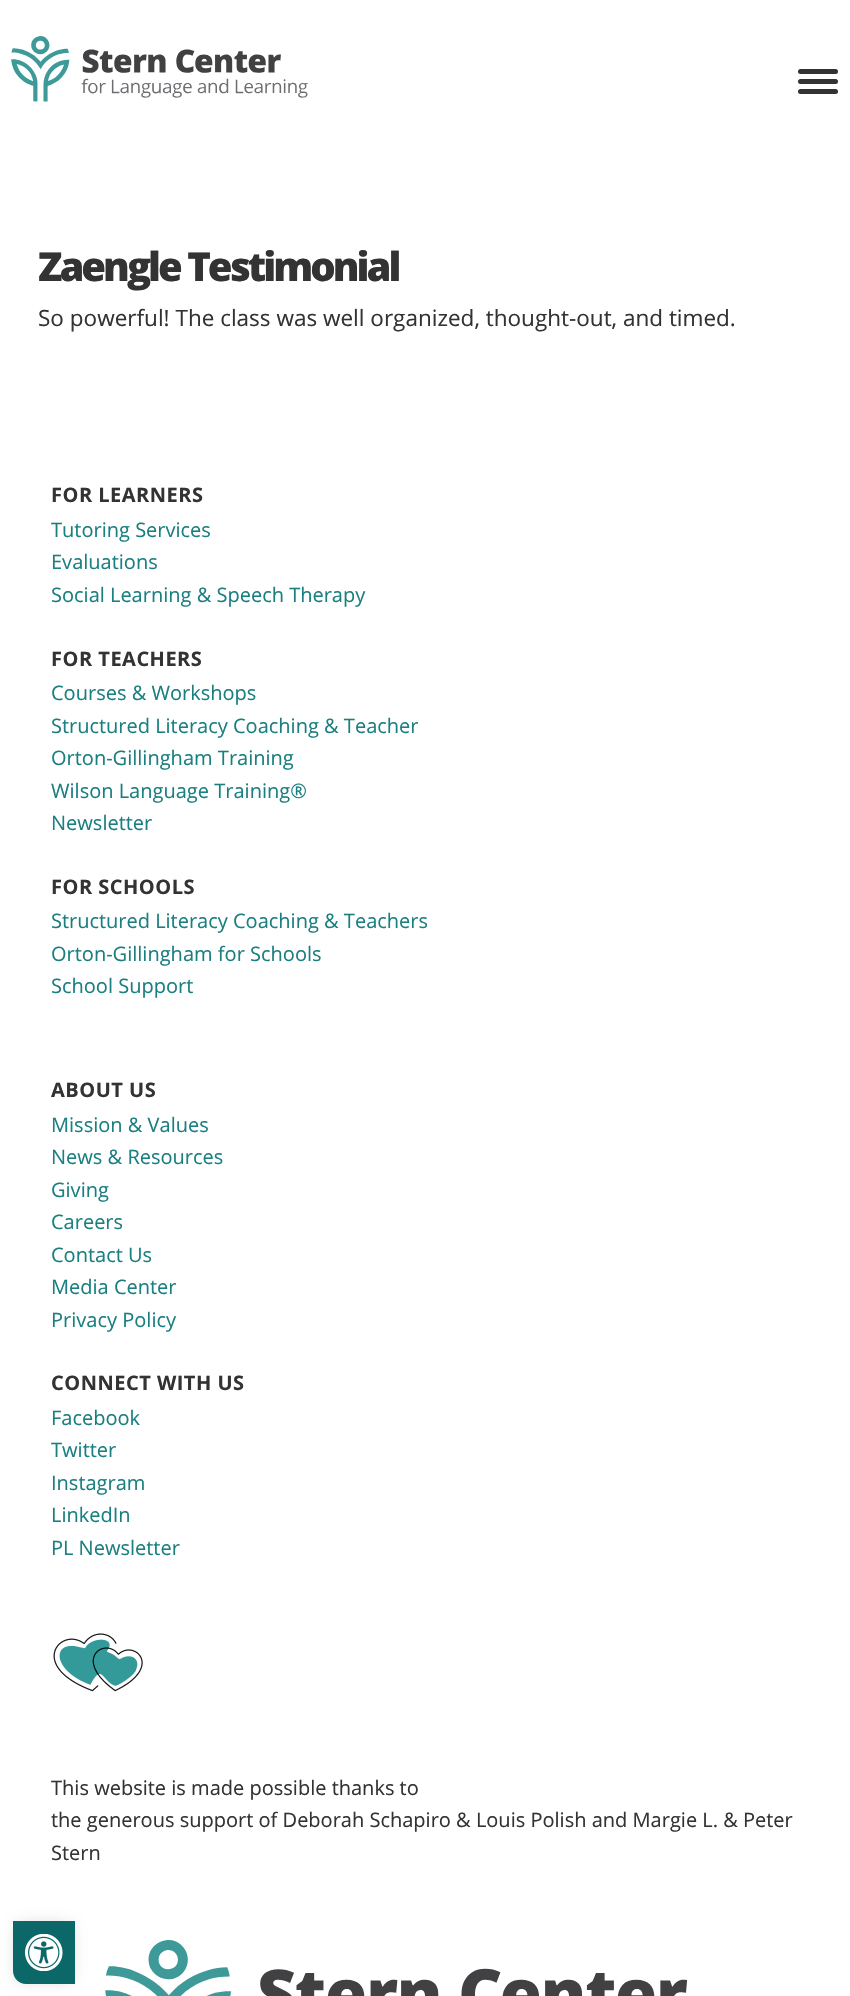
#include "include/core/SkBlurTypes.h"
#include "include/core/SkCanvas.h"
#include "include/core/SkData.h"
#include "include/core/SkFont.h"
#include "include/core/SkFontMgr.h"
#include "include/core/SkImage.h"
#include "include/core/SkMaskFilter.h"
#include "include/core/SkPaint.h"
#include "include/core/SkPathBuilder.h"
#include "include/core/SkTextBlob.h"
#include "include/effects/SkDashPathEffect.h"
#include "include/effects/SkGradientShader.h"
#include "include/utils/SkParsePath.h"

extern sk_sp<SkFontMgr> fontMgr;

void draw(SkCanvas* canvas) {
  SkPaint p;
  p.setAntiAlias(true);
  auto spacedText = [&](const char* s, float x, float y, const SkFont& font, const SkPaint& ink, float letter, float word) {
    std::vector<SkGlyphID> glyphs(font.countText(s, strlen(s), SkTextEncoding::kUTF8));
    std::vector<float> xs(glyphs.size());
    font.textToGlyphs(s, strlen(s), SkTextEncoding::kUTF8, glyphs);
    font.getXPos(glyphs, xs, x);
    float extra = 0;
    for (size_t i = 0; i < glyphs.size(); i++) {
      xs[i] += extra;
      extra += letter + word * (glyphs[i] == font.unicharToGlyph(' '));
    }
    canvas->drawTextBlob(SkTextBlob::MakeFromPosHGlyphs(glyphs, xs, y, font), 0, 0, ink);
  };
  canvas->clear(SK_ColorWHITE);
  canvas->drawImageRect(SkImages::DeferredFromEncodedData(SkData::MakeFromFileName("images/1.png")), SkRect::MakeLTRB(11, 36, 308, 102), SkSamplingOptions());
  p.setColor(SkColorSetRGB(51, 51, 51));
  canvas->drawRoundRect(SkRect::MakeLTRB(798, 69, 838, 74), 2.5f, 2.5f, p);
  canvas->drawRoundRect(SkRect::MakeLTRB(798, 79, 838, 84), 2.5f, 2.5f, p);
  canvas->drawRoundRect(SkRect::MakeLTRB(798, 89, 838, 94), 2.5f, 2.5f, p);
  canvas->drawImageRect(SkImages::DeferredFromEncodedData(SkData::MakeFromFileName("images/2.png")), SkRect::MakeLTRB(53, 1633, 143, 1692), SkSamplingOptions());
  canvas->drawImageRect(SkImages::DeferredFromEncodedData(SkData::MakeFromFileName("images/3.png")), SkRect::MakeLTRB(105, 1940, 688, 1996), SkSamplingOptions());
  p.setColor(SkColorSetARGB(26, 0, 0, 0));
  p.setMaskFilter(SkMaskFilter::MakeBlur(kNormal_SkBlurStyle, 6));
  canvas->drawRoundRect(SkRect::MakeLTRB(13, 1921, 75, 1984), 13, 13, p);
  p.setMaskFilter(nullptr);
  p.setColor(SkColorSetRGB(12, 103, 104));
  canvas->drawPath(SkPathBuilder().moveTo(13, 1921).lineTo(75, 1921).lineTo(75, 1984).lineTo(26, 1984).cubicTo(19, 1984, 13, 1978, 13, 1971).close().detach(), p);
  canvas->drawImageRect(SkImages::DeferredFromEncodedData(SkData::MakeFromFileName("images/4.png")), SkRect::MakeLTRB(25, 1934, 63, 1971), SkSamplingOptions());
  SkFont font1(fontMgr->matchFamilyStyle("Open Sans", SkFontStyle(800, SkFontStyle::kNormal_Width, SkFontStyle::kUpright_Slant)), 40);
  font1.setSubpixel(true);
  p.setColor(SkColorSetRGB(51, 51, 51));
  spacedText("Zaengle Testimonial", 38, 281, font1, p, -3, 0);
  SkFont font2(fontMgr->matchFamilyStyle("Open Sans", SkFontStyle::Normal()), 22.5f);
  font2.setSubpixel(true);
  canvas->drawString("So powerful! The class was well organized, thought-out, and timed.", 38, 326, font2, p);
  SkFont font3(fontMgr->matchFamilyStyle("Open Sans", SkFontStyle::Bold()), 20);
  font3.setSubpixel(true);
  spacedText("FOR LEARNERS", 51, 502, font3, p, 0.5f, 0);
  SkFont font4(fontMgr->matchFamilyStyle("Open Sans", SkFontStyle::Normal()), 20);
  font4.setSubpixel(true);
  p.setColor(SkColorSetRGB(27, 127, 129));
  canvas->drawString("Tutoring Services", 51, 537, font4, p);
  canvas->drawString("Evaluations", 51, 569, font4, p);
  canvas->drawString("Social Learning & Speech Therapy", 51, 602, font4, p);
  p.setColor(SkColorSetRGB(51, 51, 51));
  spacedText("FOR TEACHERS", 51, 666, font3, p, 0.5f, 0);
  p.setColor(SkColorSetRGB(27, 127, 129));
  canvas->drawString("Courses & Workshops", 51, 700, font4, p);
  canvas->drawString("Structured Literacy Coaching & Teacher", 51, 733, font4, p);
  canvas->drawString("Orton-Gillingham Training", 51, 765, font4, p);
  canvas->drawString("Wilson Language Training®", 51, 798, font4, p);
  canvas->drawString("Newsletter", 51, 830, font4, p);
  p.setColor(SkColorSetRGB(51, 51, 51));
  spacedText("FOR SCHOOLS", 51, 894, font3, p, 0.5f, 0);
  p.setColor(SkColorSetRGB(27, 127, 129));
  canvas->drawString("Structured Literacy Coaching & Teachers", 51, 928, font4, p);
  canvas->drawString("Orton-Gillingham for Schools", 51, 961, font4, p);
  canvas->drawString("School Support", 51, 993, font4, p);
  p.setColor(SkColorSetRGB(51, 51, 51));
  spacedText("ABOUT US", 51, 1097, font3, p, 0.5f, 0);
  p.setColor(SkColorSetRGB(27, 127, 129));
  canvas->drawString("Mission & Values", 51, 1132, font4, p);
  canvas->drawString("News & Resources", 51, 1164, font4, p);
  canvas->drawString("Giving", 51, 1197, font4, p);
  canvas->drawString("Careers", 51, 1229, font4, p);
  canvas->drawString("Contact Us", 51, 1262, font4, p);
  canvas->drawString("Media Center", 51, 1294, font4, p);
  canvas->drawString("Privacy Policy", 51, 1327, font4, p);
  p.setColor(SkColorSetRGB(51, 51, 51));
  spacedText("CONNECT WITH US", 51, 1390, font3, p, 0.5f, 0);
  p.setColor(SkColorSetRGB(27, 127, 129));
  canvas->drawString("Facebook", 51, 1425, font4, p);
  canvas->drawString("Twitter", 51, 1457, font4, p);
  canvas->drawString("Instagram", 51, 1490, font4, p);
  canvas->drawString("LinkedIn", 51, 1522, font4, p);
  canvas->drawString("PL Newsletter", 51, 1555, font4, p);
  p.setColor(SkColorSetRGB(51, 51, 51));
  canvas->drawString("This website is made possible thanks to", 51, 1795, font4, p);
  canvas->drawString("the generous support of Deborah Schapiro & Louis Polish and Margie L. & Peter", 51, 1827, font4, p);
  canvas->drawString("Stern", 51, 1860, font4, p);
}
